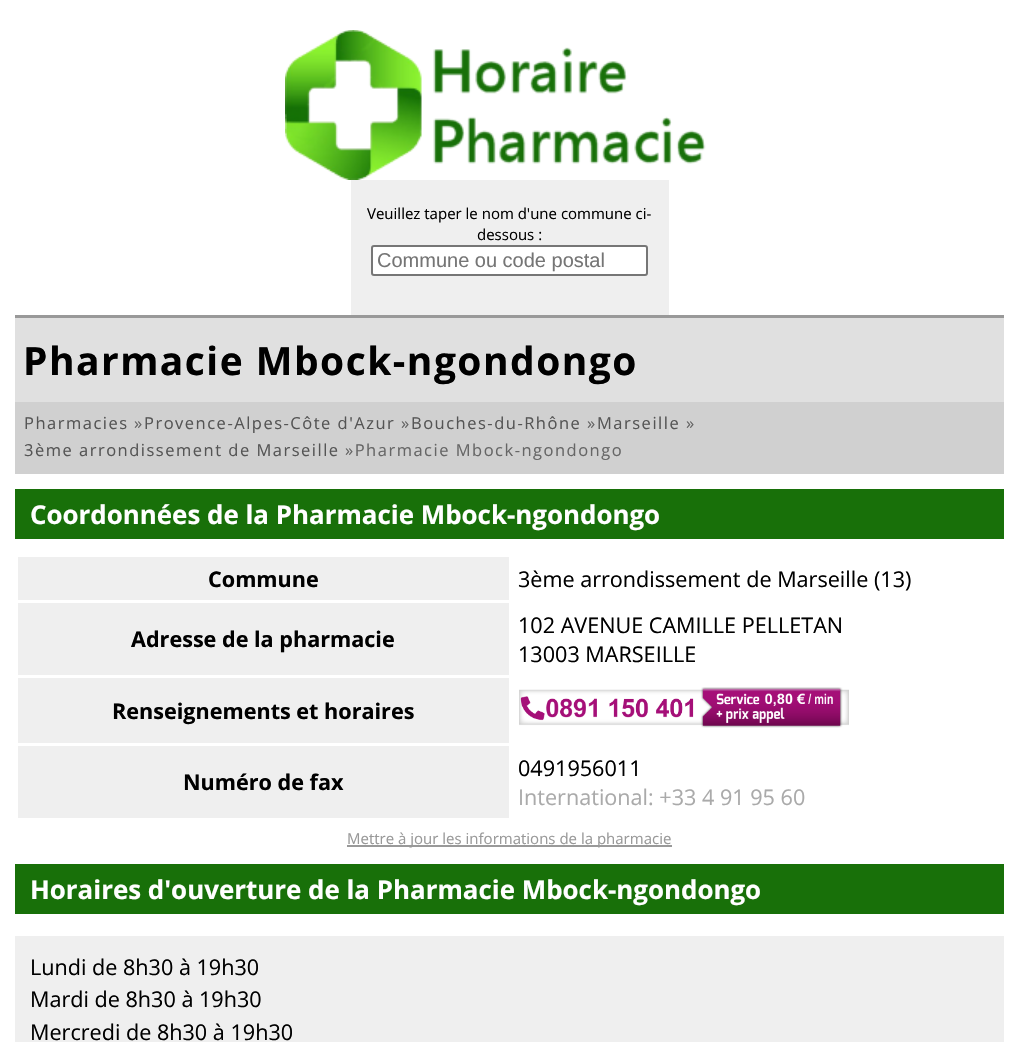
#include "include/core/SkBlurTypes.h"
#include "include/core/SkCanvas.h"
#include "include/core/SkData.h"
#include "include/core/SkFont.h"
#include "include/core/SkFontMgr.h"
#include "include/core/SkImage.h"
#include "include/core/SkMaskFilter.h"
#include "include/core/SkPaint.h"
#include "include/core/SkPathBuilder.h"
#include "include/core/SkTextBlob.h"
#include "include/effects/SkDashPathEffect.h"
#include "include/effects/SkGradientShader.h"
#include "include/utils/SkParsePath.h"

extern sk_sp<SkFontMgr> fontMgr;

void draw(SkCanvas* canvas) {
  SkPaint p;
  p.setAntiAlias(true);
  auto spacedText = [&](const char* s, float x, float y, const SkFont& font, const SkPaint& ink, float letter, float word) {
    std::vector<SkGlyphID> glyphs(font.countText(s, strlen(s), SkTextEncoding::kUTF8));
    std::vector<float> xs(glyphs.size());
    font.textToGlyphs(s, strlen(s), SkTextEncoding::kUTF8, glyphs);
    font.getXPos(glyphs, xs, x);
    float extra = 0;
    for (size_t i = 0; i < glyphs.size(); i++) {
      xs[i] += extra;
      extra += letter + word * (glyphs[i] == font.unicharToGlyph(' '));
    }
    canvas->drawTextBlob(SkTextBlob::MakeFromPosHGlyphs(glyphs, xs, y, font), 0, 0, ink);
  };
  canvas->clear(SK_ColorWHITE);
  p.setColor(SkColorSetRGB(153, 153, 153));
  canvas->drawRect(SkRect::MakeLTRB(15, 315, 1004, 318), p);
  canvas->drawImageRect(SkImages::DeferredFromEncodedData(SkData::MakeFromFileName("images/1.png")), SkRect::MakeLTRB(285, 30, 706, 180), SkSamplingOptions());
  p.setColor(SkColorSetRGB(239, 239, 239));
  canvas->drawRect(SkRect::MakeLTRB(351, 180, 669, 315), p);
  p.setColor(SK_ColorWHITE);
  canvas->drawRoundRect(SkRect::MakeLTRB(372, 246, 647, 275), 2, 2, p);
  p.setStyle(SkPaint::kStroke_Style);
  p.setStrokeWidth(2);
  p.setColor(SkColorSetRGB(118, 118, 118));
  canvas->drawRoundRect(SkRect::MakeLTRB(372, 246, 647, 275), 2, 2, p);
  p.setStyle(SkPaint::kFill_Style);
  p.setColor(SkColorSetRGB(224, 224, 224));
  canvas->drawRect(SkRect::MakeLTRB(15, 318, 1004, 402), p);
  p.setColor(SkColorSetRGB(208, 208, 208));
  canvas->drawRect(SkRect::MakeLTRB(15, 402, 1004, 474), p);
  p.setColor(SkColorSetRGB(24, 112, 9));
  canvas->drawRect(SkRect::MakeLTRB(15, 489, 1004, 539), p);
  p.setColor(SkColorSetRGB(239, 239, 239));
  canvas->drawRect(SkRect::MakeLTRB(18, 557, 509, 600), p);
  canvas->drawRect(SkRect::MakeLTRB(18, 603, 509, 675), p);
  canvas->drawRect(SkRect::MakeLTRB(18, 678, 509, 743), p);
  canvas->drawImageRect(SkImages::DeferredFromEncodedData(SkData::MakeFromFileName("images/2.png")), SkRect::MakeLTRB(519, 687, 849, 728), SkSamplingOptions());
  canvas->drawRect(SkRect::MakeLTRB(18, 746, 509, 818), p);
  p.setColor(SkColorSetRGB(153, 153, 153));
  canvas->drawRect(SkRect::MakeLTRB(347, 845, 672, 847), p);
  p.setColor(SkColorSetRGB(24, 112, 9));
  canvas->drawRect(SkRect::MakeLTRB(15, 864, 1004, 914), p);
  p.setColor(SkColorSetRGB(239, 239, 239));
  canvas->drawRect(SkRect::MakeLTRB(15, 936, 1004, 1042), p);
  SkFont font1(fontMgr->matchFamilyStyle("Open Sans", SkFontStyle::Normal()), 15);
  font1.setSubpixel(true);
  p.setColor(SK_ColorBLACK);
  canvas->drawString("Veuillez taper le nom d'une commune ci-", 367, 219, font1, p);
  canvas->drawString("dessous :", 477, 240, font1, p);
  SkFont font2(fontMgr->matchFamilyStyle("Liberation Sans", SkFontStyle::Normal()), 20);
  font2.setSubpixel(true);
  p.setColor(SkColorSetRGB(117, 117, 117));
  canvas->drawString("Commune ou code postal", 377, 267, font2, p);
  SkFont font3(fontMgr->matchFamilyStyle("Open Sans", SkFontStyle::Bold()), 38.9f);
  font3.setSubpixel(true);
  p.setColor(SK_ColorBLACK);
  spacedText("Pharmacie Mbock-ngondongo", 23, 375, font3, p, 1.5f, 0);
  SkFont font4(fontMgr->matchFamilyStyle("Open Sans", SkFontStyle::Normal()), 16.5f);
  font4.setSubpixel(true);
  p.setColor(SkColorSetRGB(85, 85, 85));
  spacedText("Pharmacies", 24, 429, font4, p, 1.5f, 0);
  p.setColor(SkColorSetRGB(102, 102, 102));
  spacedText("»", 134, 429, font4, p, 1.5f, 0);
  p.setColor(SkColorSetRGB(85, 85, 85));
  spacedText("Provence-Alpes-Côte d'Azur", 144, 429, font4, p, 1.5f, 0);
  p.setColor(SkColorSetRGB(102, 102, 102));
  spacedText("»", 401, 429, font4, p, 1.5f, 0);
  p.setColor(SkColorSetRGB(85, 85, 85));
  spacedText("Bouches-du-Rhône", 411, 429, font4, p, 1.5f, 0);
  p.setColor(SkColorSetRGB(102, 102, 102));
  spacedText("»", 587, 429, font4, p, 1.5f, 0);
  p.setColor(SkColorSetRGB(85, 85, 85));
  spacedText("Marseille", 597, 429, font4, p, 1.5f, 0);
  p.setColor(SkColorSetRGB(102, 102, 102));
  spacedText("»", 686, 429, font4, p, 1.5f, 0);
  p.setColor(SkColorSetRGB(85, 85, 85));
  spacedText("3ème arrondissement de Marseille", 24, 456, font4, p, 1.5f, 0);
  p.setColor(SkColorSetRGB(102, 102, 102));
  spacedText("»Pharmacie Mbock-ngondongo", 345, 456, font4, p, 1.5f, 0);
  SkFont font5(fontMgr->matchFamilyStyle("Open Sans", SkFontStyle::Bold()), 25.9f);
  font5.setSubpixel(true);
  p.setColor(SK_ColorWHITE);
  canvas->drawString("Coordonnées de la Pharmacie Mbock-ngondongo", 30, 524, font5, p);
  SkFont font6(fontMgr->matchFamilyStyle("Open Sans", SkFontStyle::Bold()), 21.6f);
  font6.setSubpixel(true);
  p.setColor(SK_ColorBLACK);
  canvas->drawString("Commune", 208, 587, font6, p);
  SkFont font7(fontMgr->matchFamilyStyle("Open Sans", SkFontStyle::Normal()), 21.6f);
  font7.setSubpixel(true);
  canvas->drawString("3ème arrondissement de Marseille (13)", 518, 587, font7, p);
  canvas->drawString("Adresse de la pharmacie", 131, 647, font6, p);
  canvas->drawString("102 AVENUE CAMILLE PELLETAN", 518, 633, font7, p);
  canvas->drawString("13003 MARSEILLE", 518, 662, font7, p);
  canvas->drawString("Renseignements et horaires", 112, 719, font6, p);
  canvas->drawString("Numéro de fax", 183, 790, font6, p);
  canvas->drawString("0491956011", 518, 776, font7, p);
  p.setColor(SkColorSetRGB(170, 170, 170));
  canvas->drawString("International: +33 4 91 95 60", 518, 805, font7, p);
  p.setColor(SkColorSetRGB(153, 153, 153));
  canvas->drawString("Mettre à jour les informations de la pharmacie", 347, 844, font1, p);
  p.setColor(SK_ColorWHITE);
  canvas->drawString("Horaires d'ouverture de la Pharmacie Mbock-ngondongo", 30, 899, font5, p);
  p.setColor(SK_ColorBLACK);
  canvas->drawString("Lundi de 8h30 à 19h30", 30, 975, font7, p);
  canvas->drawString("Mardi de 8h30 à 19h30", 30, 1007, font7, p);
  canvas->drawString("Mercredi de 8h30 à 19h30", 30, 1040, font7, p);
}
